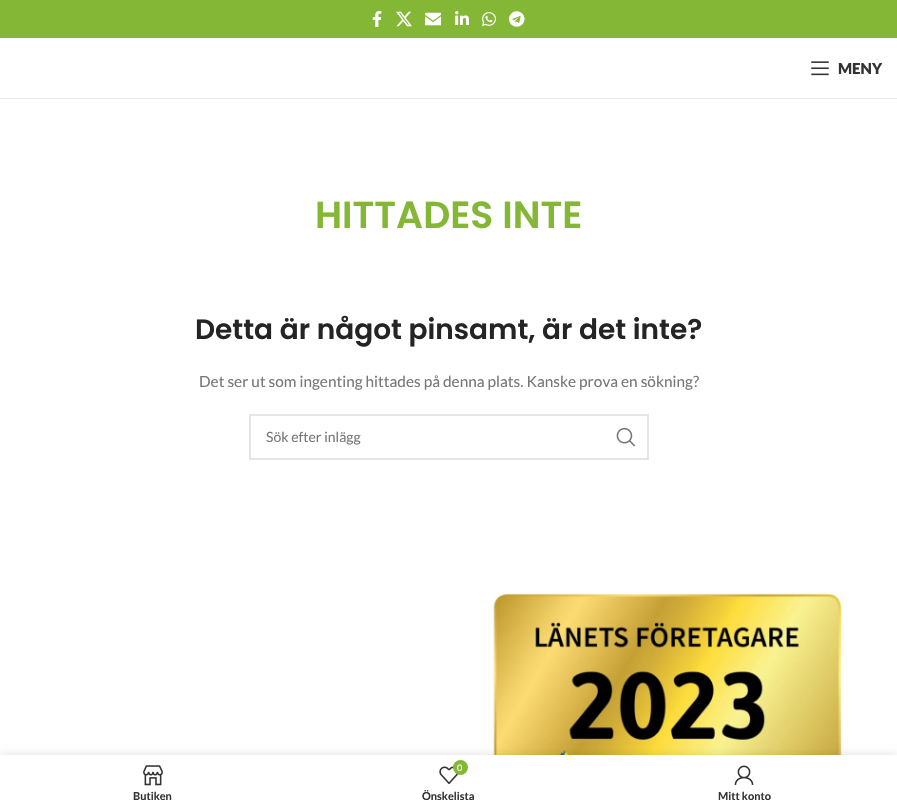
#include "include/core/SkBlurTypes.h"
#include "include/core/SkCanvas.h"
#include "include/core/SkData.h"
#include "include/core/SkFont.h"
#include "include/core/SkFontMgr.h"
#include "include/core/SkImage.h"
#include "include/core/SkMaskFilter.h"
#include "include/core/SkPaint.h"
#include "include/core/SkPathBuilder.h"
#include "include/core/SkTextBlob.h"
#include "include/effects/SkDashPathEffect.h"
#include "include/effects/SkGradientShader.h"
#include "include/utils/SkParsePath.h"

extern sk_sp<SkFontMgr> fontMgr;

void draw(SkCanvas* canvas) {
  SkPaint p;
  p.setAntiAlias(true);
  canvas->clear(SK_ColorWHITE);
  p.setColor(SkColorSetRGB(131, 183, 53));
  canvas->drawRect(SkRect::MakeLTRB(0, 0, 897, 38), p);
  canvas->drawImageRect(SkImages::DeferredFromEncodedData(SkData::MakeFromFileName("images/1.png")), SkRect::MakeLTRB(372, 11, 382, 27), SkSamplingOptions());
  canvas->drawImageRect(SkImages::DeferredFromEncodedData(SkData::MakeFromFileName("images/2.png")), SkRect::MakeLTRB(396, 11, 412, 27), SkSamplingOptions());
  canvas->drawImageRect(SkImages::DeferredFromEncodedData(SkData::MakeFromFileName("images/3.png")), SkRect::MakeLTRB(425, 12, 441, 26), SkSamplingOptions());
  canvas->drawImageRect(SkImages::DeferredFromEncodedData(SkData::MakeFromFileName("images/4.png")), SkRect::MakeLTRB(455, 11, 469, 25), SkSamplingOptions());
  canvas->drawImageRect(SkImages::DeferredFromEncodedData(SkData::MakeFromFileName("images/5.png")), SkRect::MakeLTRB(482, 12, 496, 26), SkSamplingOptions());
  canvas->drawImageRect(SkImages::DeferredFromEncodedData(SkData::MakeFromFileName("images/6.png")), SkRect::MakeLTRB(509, 11, 525, 27), SkSamplingOptions());
  p.setColor(SkColorSetRGB(232, 232, 232));
  canvas->drawRect(SkRect::MakeLTRB(0, 98, 897, 99), p);
  canvas->drawImageRect(SkImages::DeferredFromEncodedData(SkData::MakeFromFileName("images/7.png")), SkRect::MakeLTRB(811, 61, 829, 76), SkSamplingOptions());
  p.setStyle(SkPaint::kStroke_Style);
  p.setStrokeWidth(2);
  p.setColor(SkColorSetRGB(230, 230, 230));
  canvas->drawRect(SkRect::MakeLTRB(250, 415, 648, 459), p);
  canvas->drawImageRect(SkImages::DeferredFromEncodedData(SkData::MakeFromFileName("images/8.png")), SkRect::MakeLTRB(616, 427, 636, 447), SkSamplingOptions());
  canvas->drawImageRect(SkImages::DeferredFromEncodedData(SkData::MakeFromFileName("images/9.png")), SkRect::MakeLTRB(493, 593, 844, 755), SkSamplingOptions());
  p.setStyle(SkPaint::kFill_Style);
  p.setColor(SkColorSetARGB(31, 0, 0, 0));
  p.setMaskFilter(SkMaskFilter::MakeBlur(kNormal_SkBlurStyle, 4.5f));
  canvas->drawRect(SkRect::MakeLTRB(0, 755, 897, 810), p);
  p.setMaskFilter(nullptr);
  p.setColor(SK_ColorWHITE);
  canvas->drawRect(SkRect::MakeLTRB(0, 755, 897, 810), p);
  canvas->drawImageRect(SkImages::DeferredFromEncodedData(SkData::MakeFromFileName("images/10.png")), SkRect::MakeLTRB(143, 765, 163, 786), SkSamplingOptions());
  canvas->drawImageRect(SkImages::DeferredFromEncodedData(SkData::MakeFromFileName("images/11.png")), SkRect::MakeLTRB(439, 766, 459, 784), SkSamplingOptions());
  p.setColor(SkColorSetRGB(131, 183, 53));
  canvas->drawCircle(460.5f, 767.5f, 7.5f, p);
  canvas->drawImageRect(SkImages::DeferredFromEncodedData(SkData::MakeFromFileName("images/12.png")), SkRect::MakeLTRB(734, 765, 754, 785), SkSamplingOptions());
  SkFont font1(fontMgr->matchFamilyStyle("Lato", SkFontStyle(900, SkFontStyle::kNormal_Width, SkFontStyle::kUpright_Slant)), 15);
  font1.setSubpixel(true);
  p.setColor(SkColorSetRGB(51, 51, 51));
  canvas->drawString("MENY", 838, 74, font1, p);
  SkFont font2(fontMgr->matchFamilyStyle("Poppins", SkFontStyle(600, SkFontStyle::kNormal_Width, SkFontStyle::kUpright_Slant)), 37.75f);
  font2.setSubpixel(true);
  p.setColor(SkColorSetRGB(131, 183, 53));
  canvas->drawString("HITTADES INTE", 315, 228, font2, p);
  SkFont font3(fontMgr->matchFamilyStyle("Poppins", SkFontStyle(600, SkFontStyle::kNormal_Width, SkFontStyle::kUpright_Slant)), 28);
  font3.setSubpixel(true);
  p.setColor(SkColorSetRGB(36, 36, 36));
  canvas->drawString("Detta är något pinsamt, är det inte?", 195, 339, font3, p);
  SkFont font4(fontMgr->matchFamilyStyle("Lato", SkFontStyle::Normal()), 15.4f);
  font4.setSubpixel(true);
  p.setColor(SkColorSetRGB(119, 119, 119));
  canvas->drawString("Det ser ut som ingenting hittades på denna plats. Kanske prova en sökning?", 199, 387, font4, p);
  SkFont font5(fontMgr->matchFamilyStyle("Lato", SkFontStyle::Normal()), 14);
  font5.setSubpixel(true);
  canvas->drawString("Sök efter inlägg", 266, 442, font5, p);
  SkFont font6(fontMgr->matchFamilyStyle("Lato", SkFontStyle::Bold()), 11);
  font6.setSubpixel(true);
  p.setColor(SkColorSetRGB(51, 51, 51));
  canvas->drawString("Butiken", 133, 800, font6, p);
  SkFont font7(fontMgr->matchFamilyStyle("Lato", SkFontStyle::Normal()), 9);
  font7.setSubpixel(true);
  p.setColor(SK_ColorWHITE);
  canvas->drawString("0", 457, 771, font7, p);
  p.setColor(SkColorSetRGB(51, 51, 51));
  canvas->drawString("Önskelista", 422, 800, font6, p);
  canvas->drawString("Mitt konto", 718, 800, font6, p);
}
